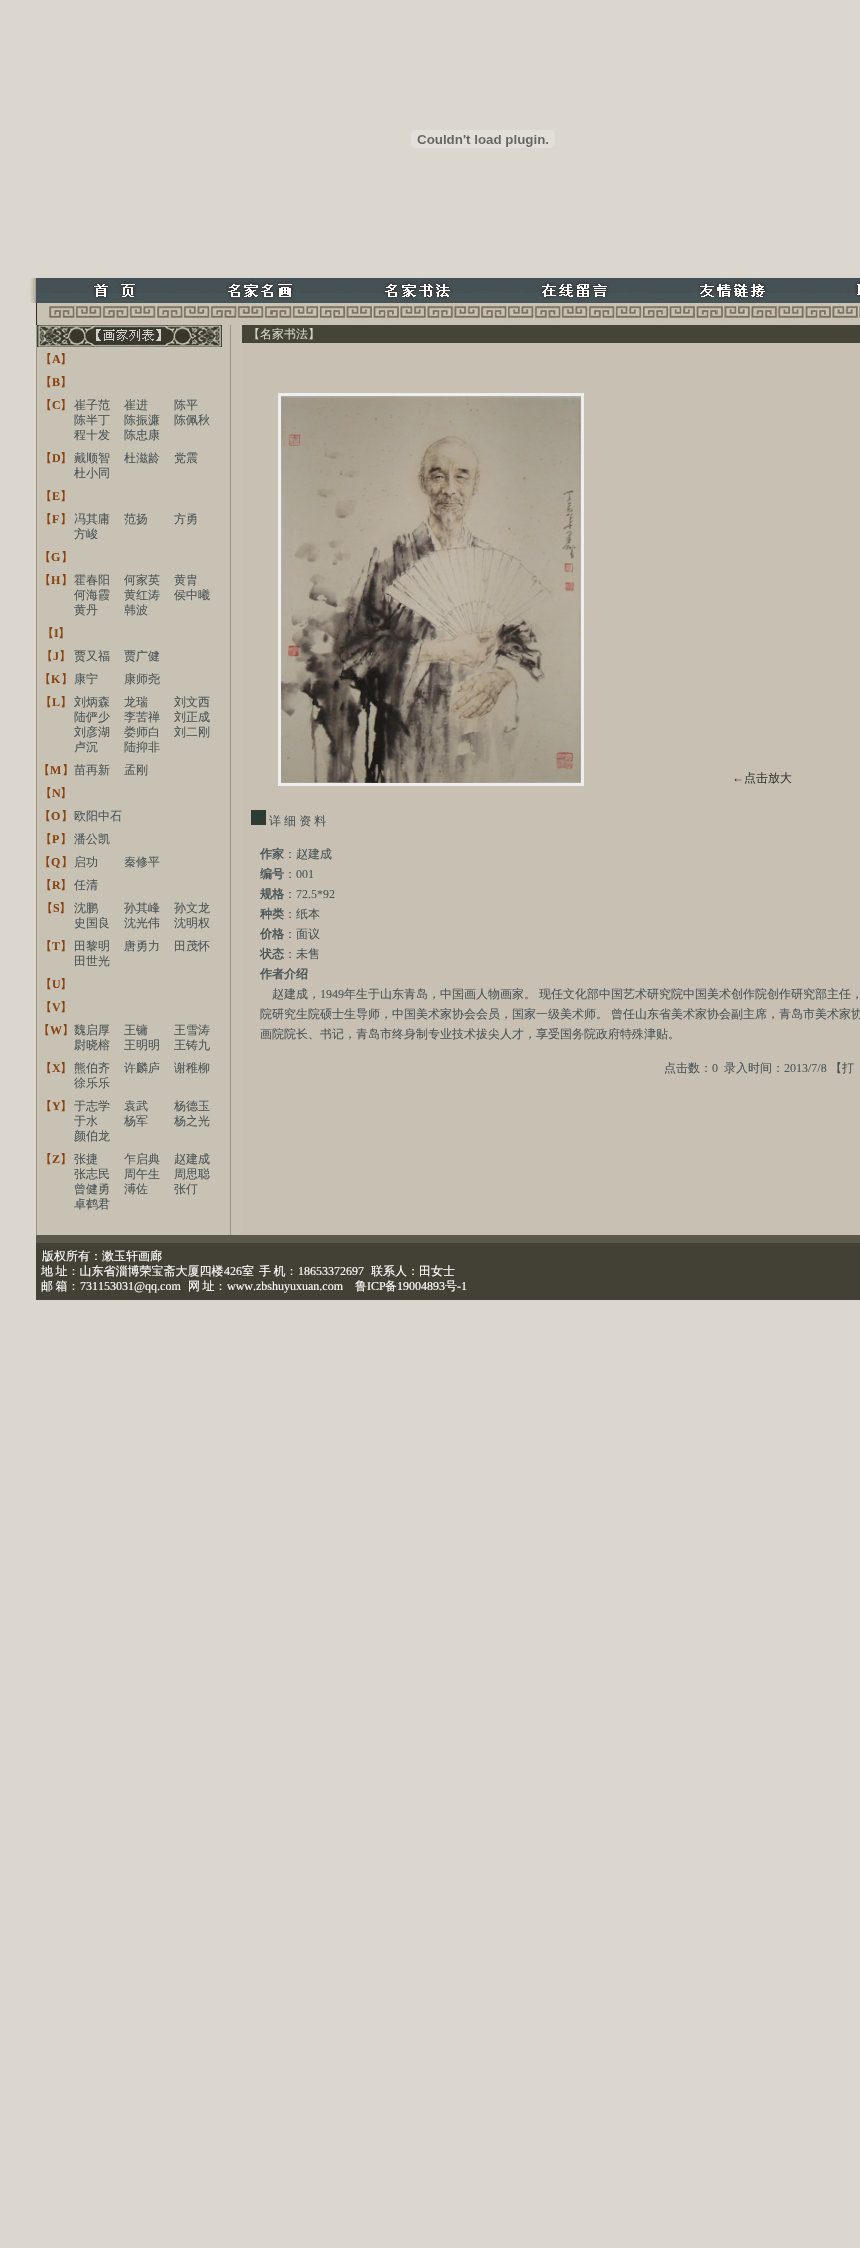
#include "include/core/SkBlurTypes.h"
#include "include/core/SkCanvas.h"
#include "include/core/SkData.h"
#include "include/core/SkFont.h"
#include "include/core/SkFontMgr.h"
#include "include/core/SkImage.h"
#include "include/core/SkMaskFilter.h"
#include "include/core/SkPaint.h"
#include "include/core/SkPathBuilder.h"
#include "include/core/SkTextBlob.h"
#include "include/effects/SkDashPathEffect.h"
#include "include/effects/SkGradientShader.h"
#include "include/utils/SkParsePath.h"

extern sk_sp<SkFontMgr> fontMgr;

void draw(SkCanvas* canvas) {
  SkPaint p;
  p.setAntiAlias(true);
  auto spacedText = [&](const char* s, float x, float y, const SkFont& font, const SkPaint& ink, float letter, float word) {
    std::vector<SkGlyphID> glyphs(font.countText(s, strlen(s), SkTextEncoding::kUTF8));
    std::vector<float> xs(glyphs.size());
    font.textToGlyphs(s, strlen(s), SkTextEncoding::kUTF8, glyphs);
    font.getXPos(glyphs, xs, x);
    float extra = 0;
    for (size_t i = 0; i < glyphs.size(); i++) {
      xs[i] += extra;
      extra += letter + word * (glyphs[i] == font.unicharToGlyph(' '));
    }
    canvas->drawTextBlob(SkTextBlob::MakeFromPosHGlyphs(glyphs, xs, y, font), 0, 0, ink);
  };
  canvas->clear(SkColorSetRGB(219, 215, 206));
  canvas->drawImageRect(SkImages::DeferredFromEncodedData(SkData::MakeFromFileName("images/1.png")), SkRect::MakeLTRB(411, 130, 555, 148), SkSamplingOptions());
  canvas->drawImageRect(SkImages::DeferredFromEncodedData(SkData::MakeFromFileName("images/2.png")), SkRect::MakeLTRB(29, 278, 36, 303), SkSamplingOptions());
  canvas->drawImageRect(SkImages::DeferredFromEncodedData(SkData::MakeFromFileName("images/3.png")), SkRect::MakeLTRB(36, 278, 186, 303), SkSamplingOptions());
  canvas->drawImageRect(SkImages::DeferredFromEncodedData(SkData::MakeFromFileName("images/4.png")), SkRect::MakeLTRB(186, 278, 336, 303), SkSamplingOptions());
  canvas->drawImageRect(SkImages::DeferredFromEncodedData(SkData::MakeFromFileName("images/5.png")), SkRect::MakeLTRB(336, 278, 496, 303), SkSamplingOptions());
  canvas->drawImageRect(SkImages::DeferredFromEncodedData(SkData::MakeFromFileName("images/6.png")), SkRect::MakeLTRB(496, 278, 653, 303), SkSamplingOptions());
  canvas->drawImageRect(SkImages::DeferredFromEncodedData(SkData::MakeFromFileName("images/7.png")), SkRect::MakeLTRB(653, 278, 806, 303), SkSamplingOptions());
  canvas->drawImageRect(SkImages::DeferredFromEncodedData(SkData::MakeFromFileName("images/8.png")), SkRect::MakeLTRB(806, 278, 860, 303), SkSamplingOptions());
  canvas->drawImageRect(SkImages::DeferredFromEncodedData(SkData::MakeFromFileName("images/9.png")), SkRect::MakeLTRB(36, 303, 860, 325), SkSamplingOptions());
  p.setColor(SkColorSetRGB(200, 194, 180));
  canvas->drawRect(SkRect::MakeLTRB(37, 325, 242, 1235), p);
  p.setColor(SkColorSetRGB(155, 148, 132));
  canvas->drawRect(SkRect::MakeLTRB(230, 325, 231, 1235), p);
  canvas->drawRect(SkRect::MakeLTRB(36, 325, 37, 1235), p);
  canvas->drawImageRect(SkImages::DeferredFromEncodedData(SkData::MakeFromFileName("images/10.png")), SkRect::MakeLTRB(37, 325, 222, 347), SkSamplingOptions());
  p.setColor(SkColorSetRGB(200, 192, 179));
  canvas->drawRect(SkRect::MakeLTRB(242, 343, 860, 1235), p);
  p.setColor(SkColorSetRGB(70, 67, 55));
  canvas->drawRect(SkRect::MakeLTRB(242, 325, 860, 343), p);
  p.setStyle(SkPaint::kStroke_Style);
  p.setStrokeWidth(3);
  p.setColor(SkColorSetRGB(238, 238, 238));
  canvas->drawRect(SkRect::MakeLTRB(279.5f, 394.5f, 582.5f, 784.5f), p);
  canvas->drawImageRect(SkImages::DeferredFromEncodedData(SkData::MakeFromFileName("images/11.png")), SkRect::MakeLTRB(281, 396, 581, 783), SkSamplingOptions());
  p.setStyle(SkPaint::kFill_Style);
  p.setColor(SkColorSetRGB(46, 59, 49));
  canvas->drawRect(SkRect::MakeLTRB(251, 810, 266, 825), p);
  p.setColor(SkColorSetRGB(67, 65, 53));
  canvas->drawRect(SkRect::MakeLTRB(36, 1243, 860, 1300), p);
  p.setColor(SkColorSetRGB(91, 89, 76));
  canvas->drawRect(SkRect::MakeLTRB(36, 1235, 860, 1243), p);
  SkFont font1(fontMgr->matchFamilyStyle("WenQuanYi Zen Hei", SkFontStyle(500, SkFontStyle::kNormal_Width, SkFontStyle::kUpright_Slant)), 12);
  font1.setSubpixel(true);
  p.setColor(SkColorSetRGB(136, 67, 17));
  canvas->drawString("【", 40, 363, font1, p);
  SkFont font2(fontMgr->matchFamilyStyle("Liberation Serif", SkFontStyle::Bold()), 12);
  font2.setSubpixel(true);
  canvas->drawString("A", 52, 363, font2, p);
  canvas->drawString("】", 60, 363, font1, p);
  canvas->drawString("【", 40, 386, font1, p);
  canvas->drawString("B", 52, 386, font2, p);
  canvas->drawString("】", 60, 386, font1, p);
  canvas->drawString("【", 40, 409, font1, p);
  canvas->drawString("C", 52, 409, font2, p);
  canvas->drawString("】", 60, 409, font1, p);
  p.setColor(SkColorSetRGB(75, 86, 88));
  canvas->drawString("崔子范", 74, 409, font1, p);
  canvas->drawString("崔进", 124, 409, font1, p);
  canvas->drawString("陈平", 174, 409, font1, p);
  canvas->drawString("陈半丁", 74, 424, font1, p);
  canvas->drawString("陈振濂", 124, 424, font1, p);
  canvas->drawString("陈佩秋", 174, 424, font1, p);
  canvas->drawString("程十发", 74, 439, font1, p);
  canvas->drawString("陈忠康", 124, 439, font1, p);
  p.setColor(SkColorSetRGB(136, 67, 17));
  canvas->drawString("【", 40, 462, font1, p);
  canvas->drawString("D", 52, 462, font2, p);
  canvas->drawString("】", 60, 462, font1, p);
  p.setColor(SkColorSetRGB(75, 86, 88));
  canvas->drawString("戴顺智", 74, 462, font1, p);
  canvas->drawString("杜滋龄", 124, 462, font1, p);
  canvas->drawString("党震", 174, 462, font1, p);
  canvas->drawString("杜小同", 74, 477, font1, p);
  p.setColor(SkColorSetRGB(136, 67, 17));
  canvas->drawString("【", 40, 500, font1, p);
  canvas->drawString("E", 52, 500, font2, p);
  canvas->drawString("】", 60, 500, font1, p);
  canvas->drawString("【", 40, 523, font1, p);
  canvas->drawString("F", 52, 523, font2, p);
  canvas->drawString("】", 60, 523, font1, p);
  p.setColor(SkColorSetRGB(75, 86, 88));
  canvas->drawString("冯其庸", 74, 523, font1, p);
  canvas->drawString("范扬", 124, 523, font1, p);
  canvas->drawString("方勇", 174, 523, font1, p);
  canvas->drawString("方峻", 74, 538, font1, p);
  p.setColor(SkColorSetRGB(136, 67, 17));
  canvas->drawString("【", 39, 561, font1, p);
  canvas->drawString("G", 51, 561, font2, p);
  canvas->drawString("】", 61, 561, font1, p);
  canvas->drawString("【", 39, 584, font1, p);
  canvas->drawString("H", 51, 584, font2, p);
  canvas->drawString("】", 61, 584, font1, p);
  p.setColor(SkColorSetRGB(75, 86, 88));
  canvas->drawString("霍春阳", 74, 584, font1, p);
  canvas->drawString("何家英", 124, 584, font1, p);
  canvas->drawString("黄胄", 174, 584, font1, p);
  canvas->drawString("何海霞", 74, 599, font1, p);
  canvas->drawString("黄红涛", 124, 599, font1, p);
  canvas->drawString("侯中曦", 174, 599, font1, p);
  canvas->drawString("黄丹", 74, 614, font1, p);
  canvas->drawString("韩波", 124, 614, font1, p);
  p.setColor(SkColorSetRGB(136, 67, 17));
  canvas->drawString("【", 42, 637, font1, p);
  canvas->drawString("I", 54, 637, font2, p);
  canvas->drawString("】", 58, 637, font1, p);
  canvas->drawString("【", 41, 660, font1, p);
  canvas->drawString("J", 53, 660, font2, p);
  canvas->drawString("】", 59, 660, font1, p);
  p.setColor(SkColorSetRGB(75, 86, 88));
  canvas->drawString("贾又福", 74, 660, font1, p);
  canvas->drawString("贾广健", 124, 660, font1, p);
  p.setColor(SkColorSetRGB(136, 67, 17));
  canvas->drawString("【", 39, 683, font1, p);
  canvas->drawString("K", 51, 683, font2, p);
  canvas->drawString("】", 61, 683, font1, p);
  p.setColor(SkColorSetRGB(75, 86, 88));
  canvas->drawString("康宁", 74, 683, font1, p);
  canvas->drawString("康师尧", 124, 683, font1, p);
  p.setColor(SkColorSetRGB(136, 67, 17));
  canvas->drawString("【", 40, 706, font1, p);
  canvas->drawString("L", 52, 706, font2, p);
  canvas->drawString("】", 60, 706, font1, p);
  p.setColor(SkColorSetRGB(75, 86, 88));
  canvas->drawString("刘炳森", 74, 706, font1, p);
  canvas->drawString("龙瑞", 124, 706, font1, p);
  canvas->drawString("刘文西", 174, 706, font1, p);
  canvas->drawString("陆俨少", 74, 721, font1, p);
  canvas->drawString("李苦禅", 124, 721, font1, p);
  canvas->drawString("刘正成", 174, 721, font1, p);
  canvas->drawString("刘彦湖", 74, 736, font1, p);
  canvas->drawString("娄师白", 124, 736, font1, p);
  canvas->drawString("刘二刚", 174, 736, font1, p);
  canvas->drawString("卢沉", 74, 751, font1, p);
  canvas->drawString("陆抑非", 124, 751, font1, p);
  p.setColor(SkColorSetRGB(136, 67, 17));
  canvas->drawString("【", 38, 774, font1, p);
  canvas->drawString("M", 50, 774, font2, p);
  canvas->drawString("】", 62, 774, font1, p);
  p.setColor(SkColorSetRGB(75, 86, 88));
  canvas->drawString("苗再新", 74, 774, font1, p);
  canvas->drawString("孟刚", 124, 774, font1, p);
  p.setColor(SkColorSetRGB(136, 67, 17));
  canvas->drawString("【", 40, 797, font1, p);
  canvas->drawString("N", 52, 797, font2, p);
  canvas->drawString("】", 60, 797, font1, p);
  canvas->drawString("【", 39, 820, font1, p);
  canvas->drawString("O", 51, 820, font2, p);
  canvas->drawString("】", 61, 820, font1, p);
  p.setColor(SkColorSetRGB(75, 86, 88));
  canvas->drawString("欧阳中石", 74, 820, font1, p);
  p.setColor(SkColorSetRGB(136, 67, 17));
  canvas->drawString("【", 40, 843, font1, p);
  canvas->drawString("P", 52, 843, font2, p);
  canvas->drawString("】", 60, 843, font1, p);
  p.setColor(SkColorSetRGB(75, 86, 88));
  canvas->drawString("潘公凯", 74, 843, font1, p);
  p.setColor(SkColorSetRGB(136, 67, 17));
  canvas->drawString("【", 39, 866, font1, p);
  canvas->drawString("Q", 51, 866, font2, p);
  canvas->drawString("】", 61, 866, font1, p);
  p.setColor(SkColorSetRGB(75, 86, 88));
  canvas->drawString("启功", 74, 866, font1, p);
  canvas->drawString("秦修平", 124, 866, font1, p);
  p.setColor(SkColorSetRGB(136, 67, 17));
  canvas->drawString("【", 40, 889, font1, p);
  canvas->drawString("R", 52, 889, font2, p);
  canvas->drawString("】", 60, 889, font1, p);
  p.setColor(SkColorSetRGB(75, 86, 88));
  canvas->drawString("任清", 74, 889, font1, p);
  p.setColor(SkColorSetRGB(136, 67, 17));
  canvas->drawString("【", 41, 912, font1, p);
  canvas->drawString("S", 53, 912, font2, p);
  canvas->drawString("】", 59, 912, font1, p);
  p.setColor(SkColorSetRGB(75, 86, 88));
  canvas->drawString("沈鹏", 74, 912, font1, p);
  canvas->drawString("孙其峰", 124, 912, font1, p);
  canvas->drawString("孙文龙", 174, 912, font1, p);
  canvas->drawString("史国良", 74, 927, font1, p);
  canvas->drawString("沈光伟", 124, 927, font1, p);
  canvas->drawString("沈明权", 174, 927, font1, p);
  p.setColor(SkColorSetRGB(136, 67, 17));
  canvas->drawString("【", 40, 950, font1, p);
  canvas->drawString("T", 52, 950, font2, p);
  canvas->drawString("】", 60, 950, font1, p);
  p.setColor(SkColorSetRGB(75, 86, 88));
  canvas->drawString("田黎明", 74, 950, font1, p);
  canvas->drawString("唐勇力", 124, 950, font1, p);
  canvas->drawString("田茂怀", 174, 950, font1, p);
  canvas->drawString("田世光", 74, 965, font1, p);
  p.setColor(SkColorSetRGB(136, 67, 17));
  canvas->drawString("【", 40, 988, font1, p);
  canvas->drawString("U", 52, 988, font2, p);
  canvas->drawString("】", 60, 988, font1, p);
  canvas->drawString("【", 40, 1011, font1, p);
  canvas->drawString("V", 52, 1011, font2, p);
  canvas->drawString("】", 60, 1011, font1, p);
  canvas->drawString("【", 38, 1034, font1, p);
  canvas->drawString("W", 50, 1034, font2, p);
  canvas->drawString("】", 62, 1034, font1, p);
  p.setColor(SkColorSetRGB(75, 86, 88));
  canvas->drawString("魏启厚", 74, 1034, font1, p);
  canvas->drawString("王镛", 124, 1034, font1, p);
  canvas->drawString("王雪涛", 174, 1034, font1, p);
  canvas->drawString("尉晓榕", 74, 1049, font1, p);
  canvas->drawString("王明明", 124, 1049, font1, p);
  canvas->drawString("王铸九", 174, 1049, font1, p);
  p.setColor(SkColorSetRGB(136, 67, 17));
  canvas->drawString("【", 40, 1072, font1, p);
  canvas->drawString("X", 52, 1072, font2, p);
  canvas->drawString("】", 60, 1072, font1, p);
  p.setColor(SkColorSetRGB(75, 86, 88));
  canvas->drawString("熊伯齐", 74, 1072, font1, p);
  canvas->drawString("许麟庐", 124, 1072, font1, p);
  canvas->drawString("谢稚柳", 174, 1072, font1, p);
  canvas->drawString("徐乐乐", 74, 1087, font1, p);
  p.setColor(SkColorSetRGB(136, 67, 17));
  canvas->drawString("【", 40, 1110, font1, p);
  canvas->drawString("Y", 52, 1110, font2, p);
  canvas->drawString("】", 60, 1110, font1, p);
  p.setColor(SkColorSetRGB(75, 86, 88));
  canvas->drawString("于志学", 74, 1110, font1, p);
  canvas->drawString("袁武", 124, 1110, font1, p);
  canvas->drawString("杨德玉", 174, 1110, font1, p);
  canvas->drawString("于水", 74, 1125, font1, p);
  canvas->drawString("杨军", 124, 1125, font1, p);
  canvas->drawString("杨之光", 174, 1125, font1, p);
  canvas->drawString("颜伯龙", 74, 1140, font1, p);
  p.setColor(SkColorSetRGB(136, 67, 17));
  canvas->drawString("【", 40, 1163, font1, p);
  canvas->drawString("Z", 52, 1163, font2, p);
  canvas->drawString("】", 60, 1163, font1, p);
  p.setColor(SkColorSetRGB(75, 86, 88));
  canvas->drawString("张捷", 74, 1163, font1, p);
  canvas->drawString("乍启典", 124, 1163, font1, p);
  canvas->drawString("赵建成", 174, 1163, font1, p);
  canvas->drawString("张志民", 74, 1178, font1, p);
  canvas->drawString("周午生", 124, 1178, font1, p);
  canvas->drawString("周思聪", 174, 1178, font1, p);
  canvas->drawString("曾健勇", 74, 1193, font1, p);
  canvas->drawString("溥佐", 124, 1193, font1, p);
  canvas->drawString("张仃", 174, 1193, font1, p);
  canvas->drawString("卓鹤君", 74, 1208, font1, p);
  p.setColor(SkColorSetRGB(210, 211, 205));
  canvas->drawString("【名家书法】", 248, 338, font1, p);
  SkFont font3(fontMgr->matchFamilyStyle("Liberation Serif", SkFontStyle::Normal()), 12);
  font3.setSubpixel(true);
  p.setColor(SkColorSetRGB(59, 57, 56));
  canvas->drawString("←", 732, 782, font3, p);
  canvas->drawString("点击放大", 744, 782, font1, p);
  p.setColor(SkColorSetRGB(75, 86, 88));
  spacedText("详 细 资 料", 269, 825, font1, p, 0, -0.5f);
  SkFont font4(fontMgr->matchFamilyStyle("WenQuanYi Zen Hei", SkFontStyle::Bold()), 12);
  font4.setSubpixel(true);
  canvas->drawString("作家", 260, 858, font4, p);
  canvas->drawString("：赵建成", 284, 858, font1, p);
  canvas->drawString("编号", 260, 878, font4, p);
  canvas->drawString("：", 284, 878, font1, p);
  canvas->drawString("001", 296, 878, font3, p);
  canvas->drawString("规格", 260, 898, font4, p);
  canvas->drawString("：", 284, 898, font1, p);
  canvas->drawString("72.5*92", 296, 898, font3, p);
  canvas->drawString("种类", 260, 918, font4, p);
  canvas->drawString("：纸本", 284, 918, font1, p);
  canvas->drawString("价格", 260, 938, font4, p);
  canvas->drawString("：面议", 284, 938, font1, p);
  canvas->drawString("状态", 260, 958, font4, p);
  canvas->drawString("：未售", 284, 958, font1, p);
  canvas->drawString("作者介绍", 260, 978, font4, p);
  canvas->drawString("赵建成，", 272, 998, font1, p);
  canvas->drawString("1949", 320, 998, font3, p);
  canvas->drawString("年生于山东青岛，中国画人物画家。", 344, 998, font1, p);
  canvas->drawString("现任文化部中国艺术研究院中国美术创作院创作研究部主任，", 539, 998, font1, p);
  canvas->drawString("院研究生院硕士生导师，中国美术家协会会员，国家一级美术师。", 260, 1018, font1, p);
  canvas->drawString("曾任山东省美术家协会副主席，青岛市美术家协", 611, 1018, font1, p);
  canvas->drawString("画院院长、书记，青岛市终身制专业技术拔尖人才，享受国务院政府特殊津贴。", 260, 1038, font1, p);
  canvas->drawString("点击数：", 664, 1072, font1, p);
  canvas->drawString("0", 712, 1072, font3, p);
  canvas->drawString("录入时间：", 724, 1072, font1, p);
  canvas->drawString("2013/7/8", 784, 1072, font3, p);
  canvas->drawString("【打", 830, 1072, font1, p);
  p.setColor(SK_ColorWHITE);
  canvas->drawString("版权所有：漱玉轩画廊", 42, 1260, font1, p);
  spacedText("地 址：山东省淄博荣宝斋大厦四楼", 41, 1275, font1, p, 0, -1);
  canvas->drawString("426", 224, 1275, font3, p);
  canvas->drawString("室", 242, 1275, font1, p);
  spacedText("手 机：", 259, 1275, font1, p, 0, -1);
  canvas->drawString("18653372697", 298, 1275, font3, p);
  canvas->drawString("联系人：田女士", 371, 1275, font1, p);
  spacedText("邮 箱：", 41, 1290, font1, p, 0, -1);
  canvas->drawString("731153031@qq.com", 80, 1290, font3, p);
  spacedText("网 址：", 188, 1290, font1, p, 0, -1);
  canvas->drawString("www.zbshuyuxuan.com", 227, 1290, font3, p);
  canvas->drawString("鲁", 355, 1290, font1, p);
  canvas->drawString("ICP", 367, 1290, font3, p);
  canvas->drawString("备", 385, 1290, font1, p);
  canvas->drawString("19004893", 397, 1290, font3, p);
  canvas->drawString("号", 445, 1290, font1, p);
  canvas->drawString("-1", 457, 1290, font3, p);
}
